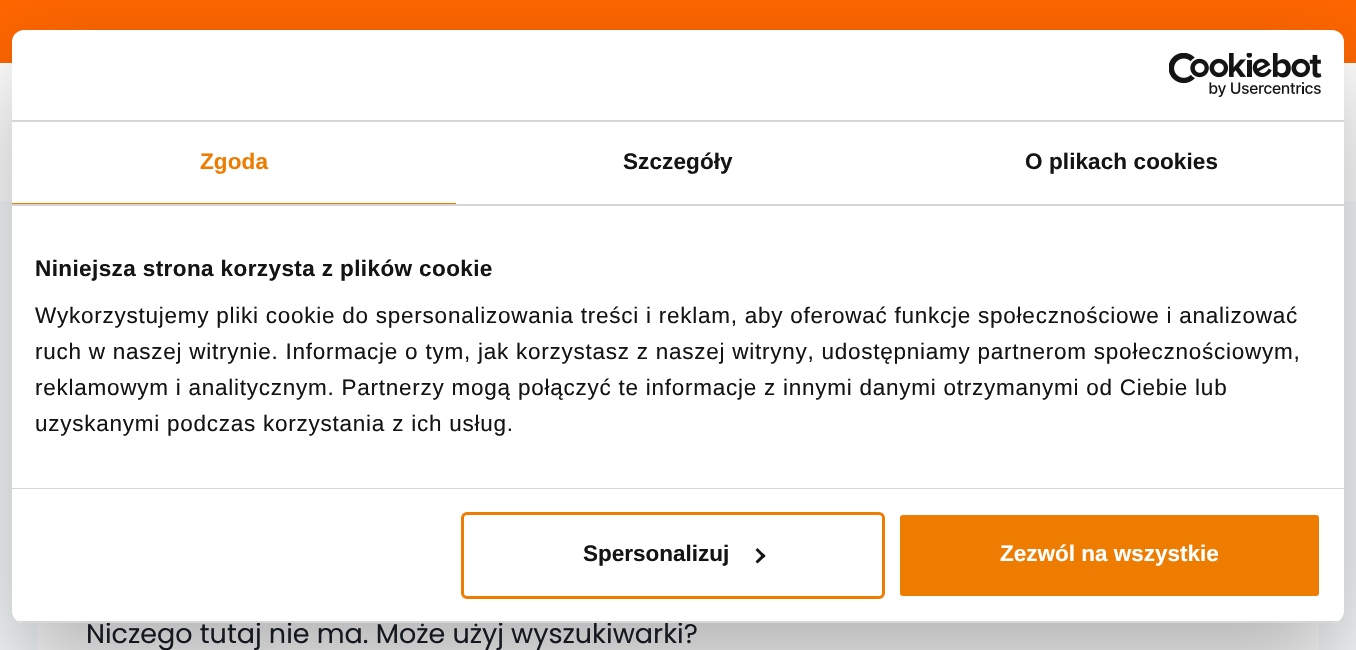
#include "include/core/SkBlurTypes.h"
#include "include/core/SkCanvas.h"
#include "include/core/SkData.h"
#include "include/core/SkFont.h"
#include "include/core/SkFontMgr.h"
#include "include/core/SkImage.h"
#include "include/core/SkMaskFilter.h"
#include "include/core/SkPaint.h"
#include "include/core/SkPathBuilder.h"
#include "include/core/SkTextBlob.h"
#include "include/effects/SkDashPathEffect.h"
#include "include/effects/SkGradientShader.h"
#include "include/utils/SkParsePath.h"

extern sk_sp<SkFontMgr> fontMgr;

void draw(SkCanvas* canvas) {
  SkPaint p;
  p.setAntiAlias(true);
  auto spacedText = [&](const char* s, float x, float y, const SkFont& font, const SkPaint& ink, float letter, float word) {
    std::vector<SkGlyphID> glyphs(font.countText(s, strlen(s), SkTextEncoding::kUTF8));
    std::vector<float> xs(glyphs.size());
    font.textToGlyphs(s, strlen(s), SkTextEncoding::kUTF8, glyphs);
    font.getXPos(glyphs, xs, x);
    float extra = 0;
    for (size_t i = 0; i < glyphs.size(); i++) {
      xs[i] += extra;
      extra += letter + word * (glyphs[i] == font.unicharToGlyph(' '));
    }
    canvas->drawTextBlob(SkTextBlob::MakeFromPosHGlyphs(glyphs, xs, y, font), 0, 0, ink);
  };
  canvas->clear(SkColorSetRGB(247, 250, 252));
  p.setColor(SK_ColorWHITE);
  canvas->drawRect(SkRect::MakeLTRB(0, 63, 1356, 201), p);
  p.setColor(SkColorSetRGB(255, 102, 0));
  canvas->drawRect(SkRect::MakeLTRB(0, 0, 1356, 63), p);
  p.setColor(SK_ColorWHITE);
  canvas->drawRect(SkRect::MakeLTRB(38, 623, 1319, 650), p);
  p.setColor(SkColorSetARGB(77, 0, 0, 0));
  p.setMaskFilter(SkMaskFilter::MakeBlur(kNormal_SkBlurStyle, 51));
  canvas->drawRoundRect(SkRect::MakeLTRB(12, 78, 1344, 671), 12, 12, p);
  p.setMaskFilter(nullptr);
  SkFont font1(fontMgr->matchFamilyStyle("Poppins", SkFontStyle::Normal()), 27);
  font1.setSubpixel(true);
  p.setColor(SkColorSetRGB(20, 24, 31));
  canvas->drawString("Niczego tutaj nie ma. Może użyj wyszukiwarki?", 86, 643, font1, p);
  p.setColor(SK_ColorWHITE);
  canvas->drawRoundRect(SkRect::MakeLTRB(12, 30, 1344, 623), 12, 12, p);
  p.setStyle(SkPaint::kStroke_Style);
  p.setStrokeWidth(3);
  p.setColor(SkColorSetRGB(237, 124, 0));
  canvas->drawRoundRect(SkRect::MakeLTRB(462.5f, 513.5f, 883.5f, 597.5f), 4.5f, 4.5f, p);
  p.setStyle(SkPaint::kFill_Style);
  p.setColor(SkColorSetRGB(20, 20, 20));
  canvas->drawPath(SkPathBuilder().moveTo(757.5f, 548).lineTo(765.5f, 556).lineTo(763.5f, 558).lineTo(755.5f, 550).close().detach(), p);
  canvas->drawPath(SkPathBuilder().moveTo(763.5f, 553.5f).lineTo(765.5f, 556).lineTo(757.5f, 563.5f).lineTo(755.5f, 561.5f).close().detach(), p);
  p.setColor(SkColorSetRGB(237, 124, 0));
  canvas->drawRoundRect(SkRect::MakeLTRB(898.5f, 513.5f, 1320.5f, 597.5f), 4.5f, 4.5f, p);
  p.setStyle(SkPaint::kStroke_Style);
  p.setColor(SK_ColorWHITE);
  canvas->drawRoundRect(SkRect::MakeLTRB(898.5f, 513.5f, 1320.5f, 597.5f), 4.5f, 4.5f, p);
  SkFont font2(fontMgr->matchFamilyStyle("Liberation Sans", SkFontStyle::Bold()), 22.5f);
  font2.setSubpixel(true);
  p.setStyle(SkPaint::kFill_Style);
  canvas->drawString("Zezwól na wszystkie", 1000, 561, font2, p);
  p.setColor(SkColorSetRGB(20, 20, 20));
  canvas->drawString("Spersonalizuj", 583, 561, font2, p);
  canvas->save();
  canvas->clipPath(SkPathBuilder().moveTo(24, 30).lineTo(1332, 30).cubicTo(1338.5f, 30, 1344, 35.5f, 1344, 42).lineTo(1344, 611).cubicTo(1344, 617.5f, 1338.5f, 623, 1332, 623).lineTo(24, 623).cubicTo(17.5f, 623, 12, 617.5f, 12, 611).lineTo(12, 42).cubicTo(12, 35.5f, 17.5f, 30, 24, 30).close().detach(), true);
  p.setColor(SkColorSetRGB(214, 214, 214));
  canvas->drawRect(SkRect::MakeLTRB(12, 621, 1344, 623), p);
  canvas->restore();
  SkFont font3(fontMgr->matchFamilyStyle("Liberation Sans", SkFontStyle::Normal()), 22.5f);
  font3.setSubpixel(true);
  p.setColor(SkColorSetRGB(20, 20, 20));
  spacedText("uzyskanymi podczas korzystania z ich usług.", 35, 431, font3, p, 0.75f, 0);
  spacedText("reklamowym i analitycznym. Partnerzy mogą połączyć te informacje z innymi danymi otrzymanymi od Ciebie lub", 35, 395, font3, p, 0.75f, 0);
  spacedText("ruch w naszej witrynie. Informacje o tym, jak korzystasz z naszej witryny, udostępniamy partnerom społecznościowym,", 35, 359, font3, p, 0.75f, 0);
  spacedText("Wykorzystujemy pliki cookie do spersonalizowania treści i reklam, aby oferować funkcje społecznościowe i analizować", 35, 323, font3, p, 0.75f, 0);
  spacedText("Niniejsza strona korzysta z plików cookie", 35, 276, font2, p, 0.4f, 0);
  p.setColor(SkColorSetRGB(214, 214, 214));
  canvas->drawRect(SkRect::MakeLTRB(12, 488, 1344, 489), p);
  p.setColor(SkColorSetRGB(20, 20, 20));
  spacedText("O plikach cookies", 1025, 169, font2, p, 0.1f, 0);
  spacedText("Szczegóły", 623, 169, font2, p, 0.1f, 0);
  p.setColor(SkColorSetRGB(237, 124, 0));
  spacedText("Zgoda", 200, 169, font2, p, 0.1f, 0);
  canvas->drawRect(SkRect::MakeLTRB(12, 203, 456, 204), p);
  p.setColor(SkColorSetRGB(214, 214, 214));
  canvas->drawRect(SkRect::MakeLTRB(12, 204, 1344, 206), p);
  canvas->drawImageRect(SkImages::DeferredFromEncodedData(SkData::MakeFromFileName("images/1.png")), SkRect::MakeLTRB(1169, 53, 1322, 97), SkSamplingOptions());
  canvas->drawRect(SkRect::MakeLTRB(12, 120, 1344, 122), p);
}
